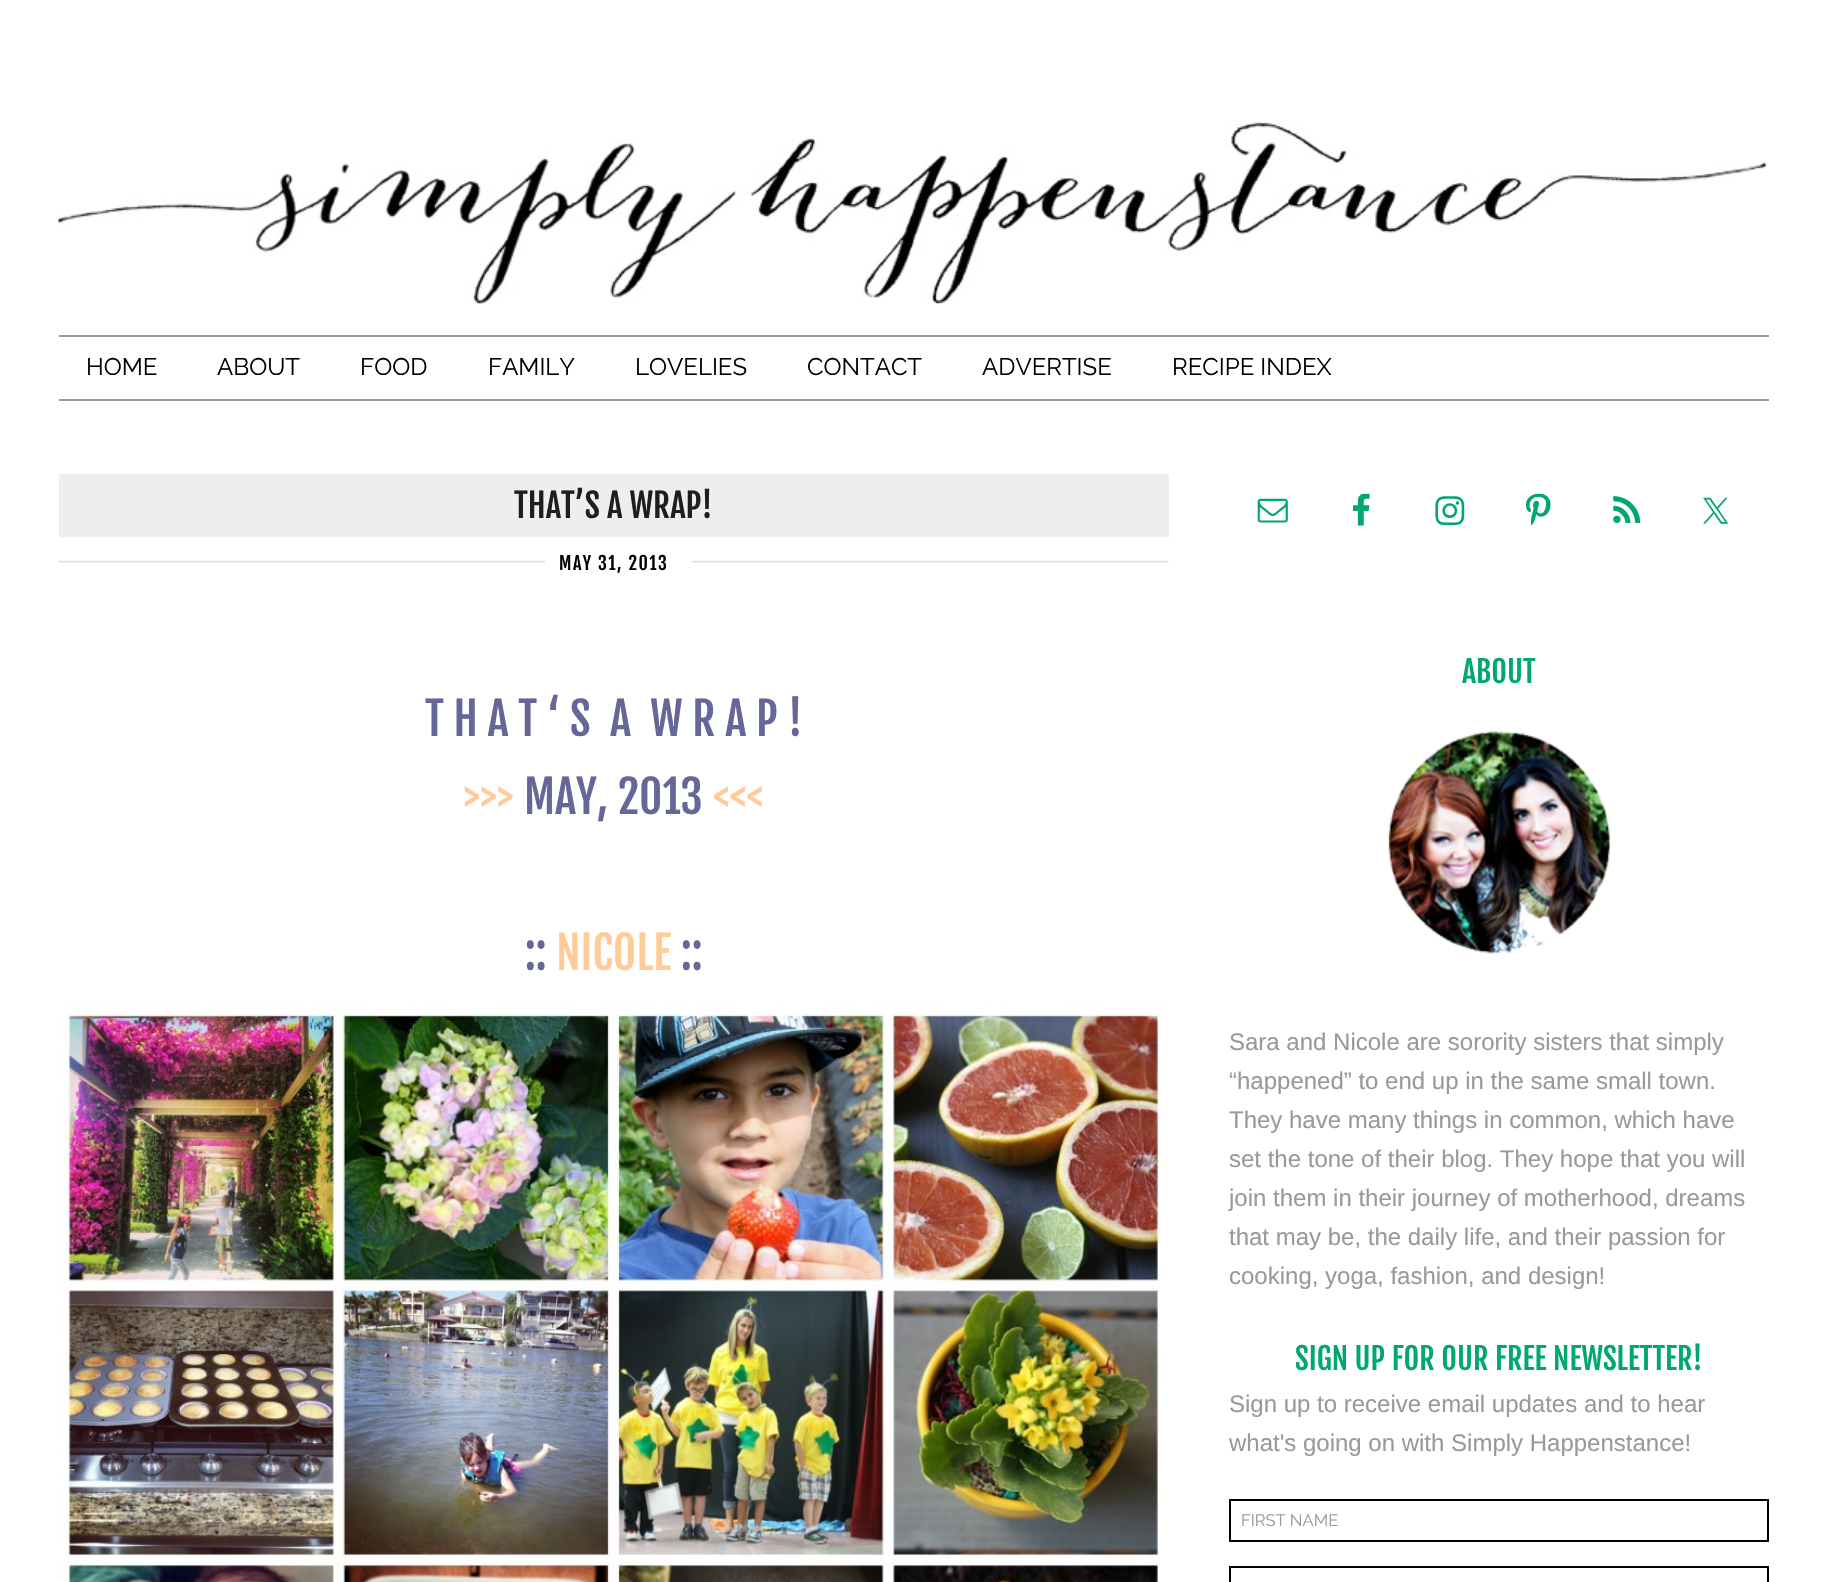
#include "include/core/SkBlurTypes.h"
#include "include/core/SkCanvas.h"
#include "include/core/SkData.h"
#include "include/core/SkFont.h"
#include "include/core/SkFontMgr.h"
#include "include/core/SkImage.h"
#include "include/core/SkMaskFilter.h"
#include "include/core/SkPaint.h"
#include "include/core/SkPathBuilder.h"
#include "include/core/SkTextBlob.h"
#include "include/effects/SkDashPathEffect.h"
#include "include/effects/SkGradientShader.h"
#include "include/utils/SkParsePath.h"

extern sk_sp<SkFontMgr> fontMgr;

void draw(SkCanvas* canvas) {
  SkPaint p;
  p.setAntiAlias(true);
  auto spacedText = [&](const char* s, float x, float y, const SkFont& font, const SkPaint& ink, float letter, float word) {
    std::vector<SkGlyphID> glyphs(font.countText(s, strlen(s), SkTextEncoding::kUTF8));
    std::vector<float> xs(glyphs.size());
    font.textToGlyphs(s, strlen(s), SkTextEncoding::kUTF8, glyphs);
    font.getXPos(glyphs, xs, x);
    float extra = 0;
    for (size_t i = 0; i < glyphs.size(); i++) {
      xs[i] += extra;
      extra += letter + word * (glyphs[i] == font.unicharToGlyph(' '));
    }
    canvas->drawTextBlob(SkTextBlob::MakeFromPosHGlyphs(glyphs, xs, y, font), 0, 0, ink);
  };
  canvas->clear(SK_ColorWHITE);
  canvas->drawImageRect(SkImages::DeferredFromEncodedData(SkData::MakeFromFileName("images/1.png")), SkRect::MakeLTRB(58, 122, 1768, 304), SkSamplingOptions());
  p.setColor(SkColorSetRGB(153, 153, 153));
  canvas->drawRect(SkRect::MakeLTRB(59, 335, 1769, 337), p);
  canvas->drawRect(SkRect::MakeLTRB(59, 399, 1769, 401), p);
  p.setColor(SkColorSetRGB(238, 238, 238));
  canvas->drawRect(SkRect::MakeLTRB(59, 474, 1169, 537), p);
  canvas->drawImageRect(SkImages::DeferredFromEncodedData(SkData::MakeFromFileName("images/2.png")), SkRect::MakeLTRB(58, 560, 1169, 563), SkSamplingOptions());
  p.setColor(SK_ColorWHITE);
  canvas->drawRect(SkRect::MakeLTRB(545, 560, 554, 563), p);
  canvas->drawImageRect(SkImages::DeferredFromEncodedData(SkData::MakeFromFileName("images/3.png")), SkRect::MakeLTRB(58, 1005, 1169, 1582), SkSamplingOptions());
  canvas->drawImageRect(SkImages::DeferredFromEncodedData(SkData::MakeFromFileName("images/4.png")), SkRect::MakeLTRB(1257, 498, 1288, 523), SkSamplingOptions());
  canvas->drawImageRect(SkImages::DeferredFromEncodedData(SkData::MakeFromFileName("images/5.png")), SkRect::MakeLTRB(1352, 493, 1370, 526), SkSamplingOptions());
  canvas->drawImageRect(SkImages::DeferredFromEncodedData(SkData::MakeFromFileName("images/6.png")), SkRect::MakeLTRB(1435, 496, 1465, 525), SkSamplingOptions());
  canvas->drawImageRect(SkImages::DeferredFromEncodedData(SkData::MakeFromFileName("images/7.png")), SkRect::MakeLTRB(1525, 493, 1551, 526), SkSamplingOptions());
  canvas->drawImageRect(SkImages::DeferredFromEncodedData(SkData::MakeFromFileName("images/8.png")), SkRect::MakeLTRB(1613, 496, 1641, 523), SkSamplingOptions());
  canvas->drawImageRect(SkImages::DeferredFromEncodedData(SkData::MakeFromFileName("images/9.png")), SkRect::MakeLTRB(1703, 497, 1729, 524), SkSamplingOptions());
  canvas->drawImageRect(SkImages::DeferredFromEncodedData(SkData::MakeFromFileName("images/10.png")), SkRect::MakeLTRB(1388, 730, 1610, 955), SkSamplingOptions());
  p.setStyle(SkPaint::kStroke_Style);
  p.setStrokeWidth(2);
  p.setColor(SK_ColorBLACK);
  canvas->drawRect(SkRect::MakeLTRB(1230, 1500, 1768, 1541), p);
  canvas->drawRect(SkRect::MakeLTRB(1230, 1567, 1768, 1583), p);
  SkFont font1(fontMgr->matchFamilyStyle("Raleway", SkFontStyle::Normal()), 24);
  font1.setSubpixel(true);
  p.setStyle(SkPaint::kFill_Style);
  canvas->drawString("HOME", 86, 375, font1, p);
  canvas->drawString("ABOUT", 217, 375, font1, p);
  canvas->drawString("FOOD", 360, 375, font1, p);
  canvas->drawString("FAMILY", 488, 375, font1, p);
  canvas->drawString("LOVELIES", 635, 375, font1, p);
  canvas->drawString("CONTACT", 807, 375, font1, p);
  canvas->drawString("ADVERTISE", 982, 375, font1, p);
  canvas->drawString("RECIPE INDEX", 1172, 375, font1, p);
  SkFont font2(fontMgr->matchFamilyStyle("Fjalla One", SkFontStyle::Normal()), 33);
  font2.setSubpixel(true);
  p.setColor(SkColorSetRGB(30, 30, 30));
  canvas->drawString("THAT’S A WRAP!", 514, 518, font2, p);
  SkFont font3(fontMgr->matchFamilyStyle("Fjalla One", SkFontStyle::Normal()), 18);
  font3.setSubpixel(true);
  p.setColor(SK_ColorBLACK);
  spacedText("MAY 31, 2013", 559, 570, font3, p, 1.5f, 0);
  SkFont font4(fontMgr->matchFamilyStyle("Fjalla One", SkFontStyle::Normal()), 45);
  font4.setSubpixel(true);
  p.setColor(SkColorSetRGB(102, 102, 153));
  canvas->drawString("T H A T ‘ S  A  W R A P !", 425, 736, font4, p);
  p.setColor(SkColorSetRGB(255, 204, 153));
  canvas->drawString(">>>", 464, 814, font4, p);
  p.setColor(SkColorSetRGB(102, 102, 153));
  canvas->drawString("MAY, 2013", 524, 814, font4, p);
  p.setColor(SkColorSetRGB(255, 204, 153));
  canvas->drawString("<<<", 713, 814, font4, p);
  p.setColor(SkColorSetRGB(102, 102, 153));
  canvas->drawString("::", 525, 970, font4, p);
  p.setColor(SkColorSetRGB(255, 204, 153));
  canvas->drawString("NICOLE", 556, 970, font4, p);
  p.setColor(SkColorSetRGB(102, 102, 153));
  canvas->drawString("::", 681, 970, font4, p);
  SkFont font5(fontMgr->matchFamilyStyle("Fjalla One", SkFontStyle::Normal()), 30);
  font5.setSubpixel(true);
  p.setColor(SkColorSetRGB(0, 168, 107));
  canvas->drawString("ABOUT", 1462, 683, font5, p);
  SkFont font6(fontMgr->matchFamilyStyle("Liberation Sans", SkFontStyle::Normal()), 24);
  font6.setSubpixel(true);
  p.setColor(SkColorSetRGB(153, 153, 153));
  canvas->drawString("Sara and Nicole are sorority sisters that simply", 1229, 1050, font6, p);
  canvas->drawString("“happened” to end up in the same small town.", 1229, 1089, font6, p);
  canvas->drawString("They have many things in common, which have", 1229, 1128, font6, p);
  canvas->drawString("set the tone of their blog. They hope that you will", 1229, 1167, font6, p);
  canvas->drawString("join them in their journey of motherhood, dreams", 1229, 1206, font6, p);
  canvas->drawString("that may be, the daily life, and their passion for", 1229, 1245, font6, p);
  canvas->drawString("cooking, yoga, fashion, and design!", 1229, 1284, font6, p);
  p.setColor(SkColorSetRGB(0, 168, 107));
  canvas->drawString("SIGN UP FOR OUR FREE NEWSLETTER!", 1295, 1370, font5, p);
  p.setColor(SkColorSetRGB(153, 153, 153));
  canvas->drawString("Sign up to receive email updates and to hear", 1229, 1412, font6, p);
  canvas->drawString("what's going on with Simply Happenstance!", 1229, 1451, font6, p);
  SkFont font7(fontMgr->matchFamilyStyle("Raleway", SkFontStyle::Normal()), 16.5f);
  font7.setSubpixel(true);
  canvas->drawString("FIRST NAME", 1241, 1526, font7, p);
}
